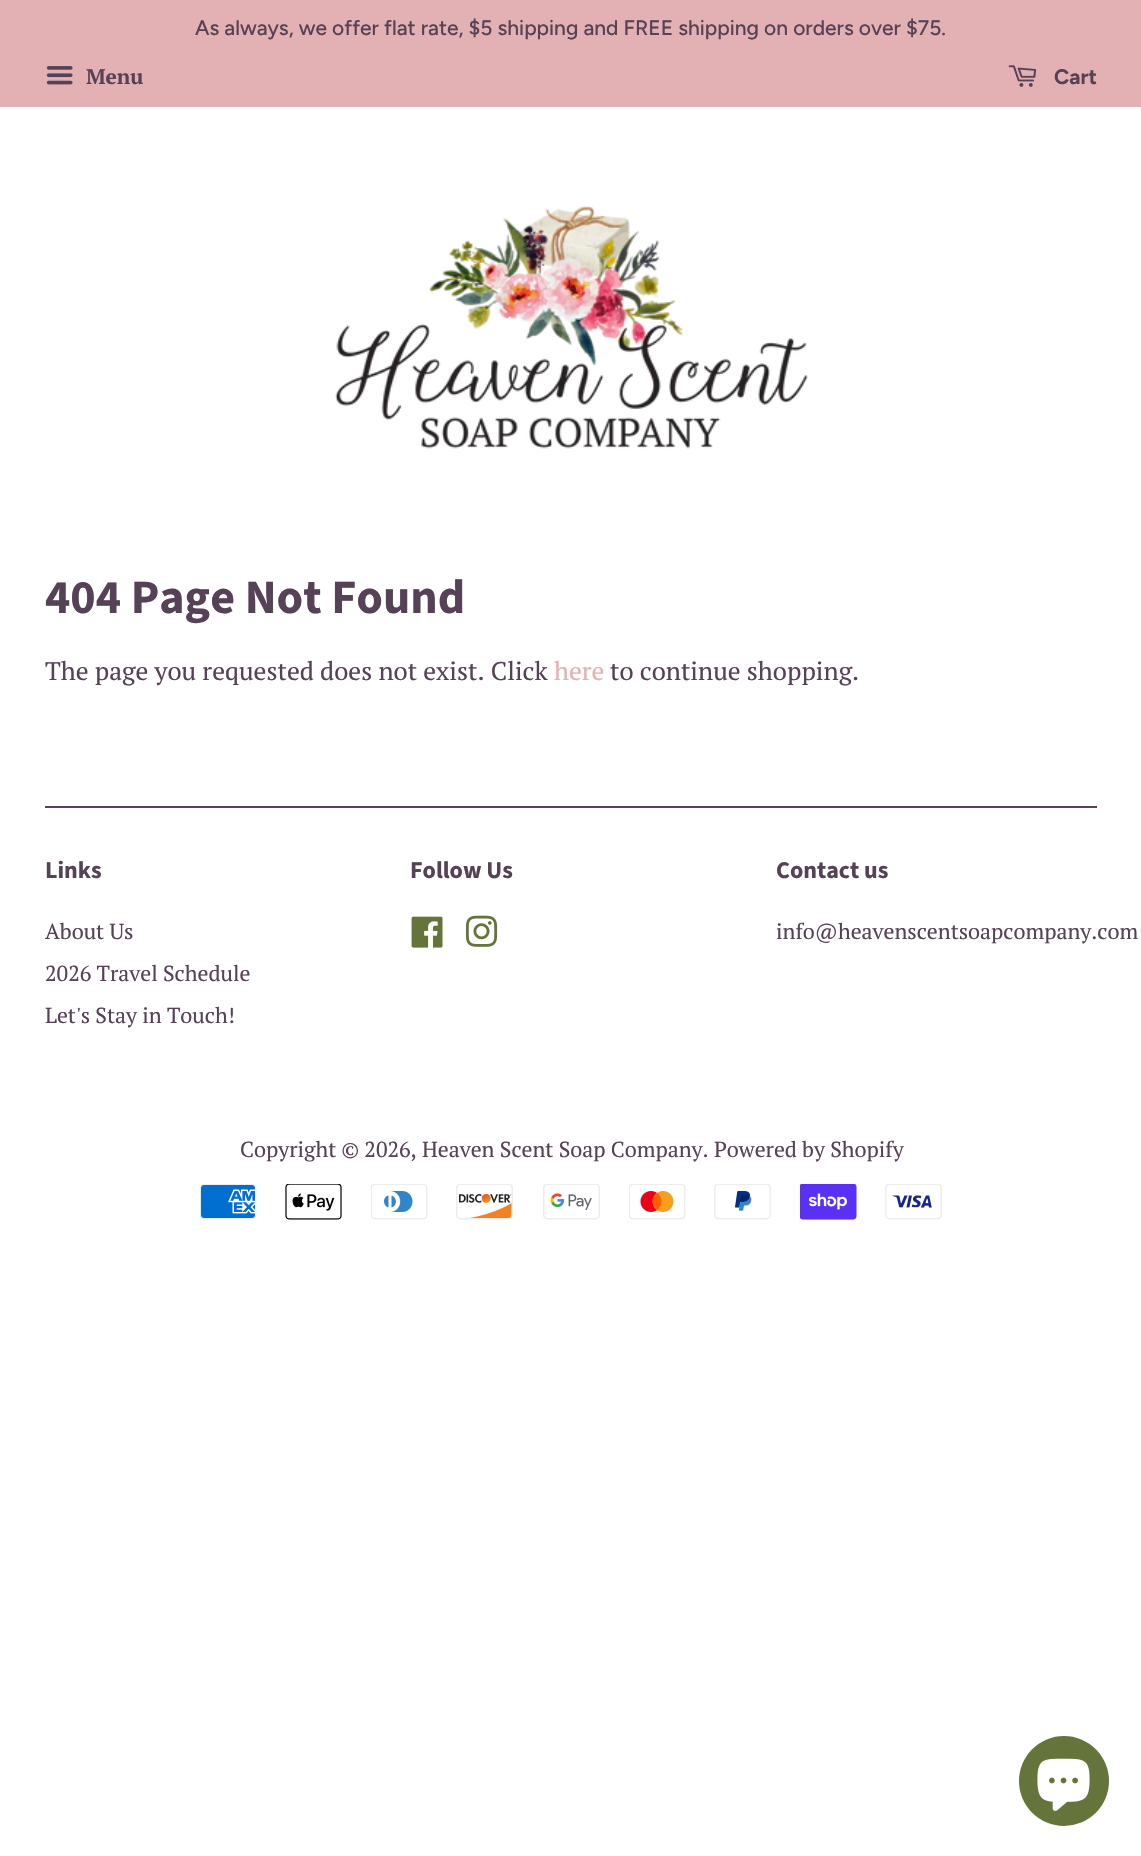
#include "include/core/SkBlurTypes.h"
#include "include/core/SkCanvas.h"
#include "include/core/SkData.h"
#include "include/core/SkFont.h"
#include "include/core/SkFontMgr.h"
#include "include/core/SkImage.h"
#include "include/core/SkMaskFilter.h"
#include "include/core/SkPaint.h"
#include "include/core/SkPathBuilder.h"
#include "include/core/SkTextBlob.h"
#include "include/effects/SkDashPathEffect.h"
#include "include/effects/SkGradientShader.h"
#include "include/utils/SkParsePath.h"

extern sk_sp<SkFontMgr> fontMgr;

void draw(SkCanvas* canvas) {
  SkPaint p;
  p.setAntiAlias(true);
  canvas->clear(SK_ColorWHITE);
  p.setColor(SkColorSetRGB(227, 177, 180));
  canvas->drawRect(SkRect::MakeLTRB(0, 0, 1141, 107), p);
  canvas->drawImageRect(SkImages::DeferredFromEncodedData(SkData::MakeFromFileName("images/1.png")), SkRect::MakeLTRB(46, 66, 73, 85), SkSamplingOptions());
  canvas->drawImageRect(SkImages::DeferredFromEncodedData(SkData::MakeFromFileName("images/2.png")), SkRect::MakeLTRB(1008, 65, 1037, 87), SkSamplingOptions());
  canvas->drawImageRect(SkImages::DeferredFromEncodedData(SkData::MakeFromFileName("images/3.png")), SkRect::MakeLTRB(335, 205, 808, 449), SkSamplingOptions());
  p.setColor(SkColorSetRGB(86, 66, 86));
  canvas->drawRect(SkRect::MakeLTRB(45, 806, 1097, 808), p);
  canvas->drawImageRect(SkImages::DeferredFromEncodedData(SkData::MakeFromFileName("images/4.png")), SkRect::MakeLTRB(411, 916, 443, 948), SkSamplingOptions());
  canvas->drawImageRect(SkImages::DeferredFromEncodedData(SkData::MakeFromFileName("images/5.png")), SkRect::MakeLTRB(465, 915, 498, 947), SkSamplingOptions());
  canvas->drawImageRect(SkImages::DeferredFromEncodedData(SkData::MakeFromFileName("images/6.png")), SkRect::MakeLTRB(200, 1184, 257, 1220), SkSamplingOptions());
  canvas->drawImageRect(SkImages::DeferredFromEncodedData(SkData::MakeFromFileName("images/7.png")), SkRect::MakeLTRB(285, 1184, 342, 1220), SkSamplingOptions());
  canvas->drawImageRect(SkImages::DeferredFromEncodedData(SkData::MakeFromFileName("images/8.png")), SkRect::MakeLTRB(371, 1184, 428, 1220), SkSamplingOptions());
  canvas->drawImageRect(SkImages::DeferredFromEncodedData(SkData::MakeFromFileName("images/9.png")), SkRect::MakeLTRB(456, 1184, 513, 1220), SkSamplingOptions());
  canvas->drawImageRect(SkImages::DeferredFromEncodedData(SkData::MakeFromFileName("images/10.png")), SkRect::MakeLTRB(543, 1184, 600, 1220), SkSamplingOptions());
  canvas->drawImageRect(SkImages::DeferredFromEncodedData(SkData::MakeFromFileName("images/11.png")), SkRect::MakeLTRB(629, 1184, 686, 1220), SkSamplingOptions());
  canvas->drawImageRect(SkImages::DeferredFromEncodedData(SkData::MakeFromFileName("images/12.png")), SkRect::MakeLTRB(714, 1184, 771, 1220), SkSamplingOptions());
  canvas->drawImageRect(SkImages::DeferredFromEncodedData(SkData::MakeFromFileName("images/13.png")), SkRect::MakeLTRB(800, 1184, 857, 1220), SkSamplingOptions());
  canvas->drawImageRect(SkImages::DeferredFromEncodedData(SkData::MakeFromFileName("images/14.png")), SkRect::MakeLTRB(885, 1184, 942, 1220), SkSamplingOptions());
  p.setColor(SkColorSetRGB(101, 116, 58));
  canvas->drawCircle(1064, 1781, 45, p);
  canvas->drawImageRect(SkImages::DeferredFromEncodedData(SkData::MakeFromFileName("images/15.png")), SkRect::MakeLTRB(1037, 1758, 1090, 1811), SkSamplingOptions());
  SkFont font1(fontMgr->matchFamilyStyle("Figtree", SkFontStyle(500, SkFontStyle::kNormal_Width, SkFontStyle::kUpright_Slant)), 21);
  font1.setSubpixel(true);
  p.setColor(SkColorSetRGB(86, 66, 86));
  canvas->drawString("As always, we offer flat rate, $5 shipping and FREE shipping on orders over $75.", 195, 35, font1, p);
  SkFont font2(fontMgr->matchFamilyStyle("PT Serif", SkFontStyle::Bold()), 21);
  font2.setSubpixel(true);
  canvas->drawString("Menu", 86, 84, font2, p);
  SkFont font3(fontMgr->matchFamilyStyle("Figtree", SkFontStyle::Bold()), 21);
  font3.setSubpixel(true);
  canvas->drawString("Cart", 1054, 84, font3, p);
  SkFont font4(fontMgr->matchFamilyStyle("Source Sans Pro", SkFontStyle::Bold()), 48);
  font4.setSubpixel(true);
  canvas->drawString("404 Page Not Found", 45, 613, font4, p);
  SkFont font5(fontMgr->matchFamilyStyle("PT Serif", SkFontStyle::Normal()), 25.5f);
  font5.setSubpixel(true);
  canvas->drawString("The page you requested does not exist. Click", 45, 680, font5, p);
  p.setColor(SkColorSetRGB(227, 177, 180));
  canvas->drawString("here", 554, 680, font5, p);
  p.setColor(SkColorSetRGB(86, 66, 86));
  canvas->drawString("to continue shopping.", 610, 680, font5, p);
  SkFont font6(fontMgr->matchFamilyStyle("Source Sans Pro", SkFontStyle::Bold()), 24);
  font6.setSubpixel(true);
  canvas->drawString("Links", 45, 878, font6, p);
  SkFont font7(fontMgr->matchFamilyStyle("PT Serif", SkFontStyle::Normal()), 21.7f);
  font7.setSubpixel(true);
  canvas->drawString("About Us", 45, 939, font7, p);
  canvas->drawString("2026 Travel Schedule", 45, 981, font7, p);
  canvas->drawString("Let's Stay in Touch!", 45, 1023, font7, p);
  canvas->drawString("Follow Us", 410, 878, font6, p);
  canvas->drawString("Contact us", 776, 878, font6, p);
  canvas->drawString("info@heavenscentsoapcompany.com", 776, 939, font7, p);
  canvas->drawString("Copyright © 2026, Heaven Scent Soap Company. Powered by Shopify", 240, 1157, font7, p);
}
